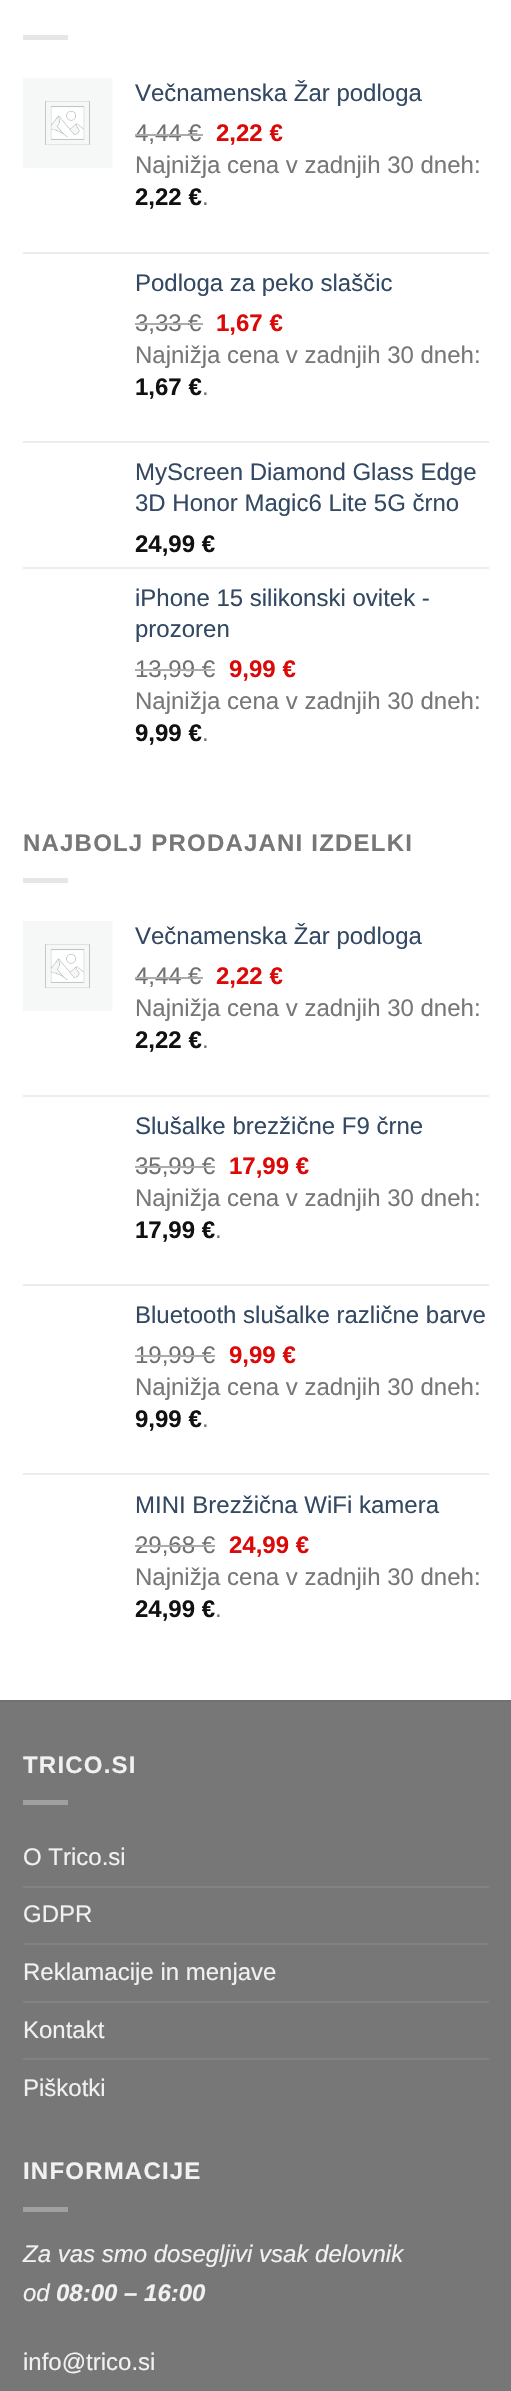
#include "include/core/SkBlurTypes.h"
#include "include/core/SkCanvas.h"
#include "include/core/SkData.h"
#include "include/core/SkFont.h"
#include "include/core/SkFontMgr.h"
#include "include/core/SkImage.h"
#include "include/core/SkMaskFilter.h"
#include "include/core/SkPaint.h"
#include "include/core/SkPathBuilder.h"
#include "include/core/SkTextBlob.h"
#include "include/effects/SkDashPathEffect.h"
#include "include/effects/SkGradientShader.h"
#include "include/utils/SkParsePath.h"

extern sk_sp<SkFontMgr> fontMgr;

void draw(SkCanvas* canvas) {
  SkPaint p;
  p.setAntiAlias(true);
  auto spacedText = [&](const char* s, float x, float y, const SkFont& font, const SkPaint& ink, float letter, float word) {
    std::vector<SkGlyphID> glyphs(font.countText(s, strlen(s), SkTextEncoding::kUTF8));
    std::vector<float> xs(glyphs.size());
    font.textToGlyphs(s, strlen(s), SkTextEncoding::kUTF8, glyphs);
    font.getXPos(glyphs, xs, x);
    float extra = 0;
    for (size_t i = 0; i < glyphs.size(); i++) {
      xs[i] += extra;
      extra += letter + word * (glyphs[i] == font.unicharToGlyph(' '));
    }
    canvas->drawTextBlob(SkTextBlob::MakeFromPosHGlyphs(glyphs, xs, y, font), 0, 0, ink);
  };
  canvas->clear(SK_ColorWHITE);
  p.setColor(SkColorSetRGB(230, 230, 230));
  canvas->drawRect(SkRect::MakeLTRB(23, 35, 68, 40), p);
  canvas->drawImageRect(SkImages::DeferredFromEncodedData(SkData::MakeFromFileName("images/1.png")), SkRect::MakeLTRB(23, 78, 113, 168), SkSamplingOptions());
  p.setColor(SkColorSetRGB(236, 236, 236));
  canvas->drawRect(SkRect::MakeLTRB(23, 252, 489, 254), p);
  canvas->drawRect(SkRect::MakeLTRB(23, 441, 489, 443), p);
  canvas->drawRect(SkRect::MakeLTRB(23, 567, 489, 569), p);
  p.setColor(SkColorSetRGB(230, 230, 230));
  canvas->drawRect(SkRect::MakeLTRB(23, 878, 68, 883), p);
  canvas->drawImageRect(SkImages::DeferredFromEncodedData(SkData::MakeFromFileName("images/2.png")), SkRect::MakeLTRB(23, 921, 113, 1011), SkSamplingOptions());
  p.setColor(SkColorSetRGB(236, 236, 236));
  canvas->drawRect(SkRect::MakeLTRB(23, 1095, 489, 1097), p);
  canvas->drawRect(SkRect::MakeLTRB(23, 1284, 489, 1286), p);
  canvas->drawRect(SkRect::MakeLTRB(23, 1473, 489, 1475), p);
  p.setColor(SkColorSetRGB(119, 119, 119));
  canvas->drawRect(SkRect::MakeLTRB(0, 1702, 511, 2391), p);
  p.setColor(SkColorSetRGB(113, 113, 113));
  canvas->drawRect(SkRect::MakeLTRB(0, 1700, 511, 1702), p);
  p.setColor(SkColorSetRGB(160, 160, 160));
  canvas->drawRect(SkRect::MakeLTRB(23, 1800, 68, 1805), p);
  p.setColor(SkColorSetRGB(130, 130, 130));
  canvas->drawRect(SkRect::MakeLTRB(23, 1886, 489, 1888), p);
  canvas->drawRect(SkRect::MakeLTRB(23, 1943, 489, 1945), p);
  canvas->drawRect(SkRect::MakeLTRB(23, 2001, 489, 2003), p);
  canvas->drawRect(SkRect::MakeLTRB(23, 2058, 489, 2060), p);
  p.setColor(SkColorSetRGB(160, 160, 160));
  canvas->drawRect(SkRect::MakeLTRB(23, 2207, 68, 2212), p);
  SkFont font1(fontMgr->matchFamilyStyle("Liberation Sans", SkFontStyle::Normal()), 24);
  font1.setSubpixel(true);
  p.setColor(SkColorSetRGB(51, 72, 98));
  canvas->drawString("Večnamenska Žar podloga", 135, 101, font1, p);
  p.setColor(SkColorSetRGB(112, 112, 112));
  canvas->drawString("4,44", 135, 141, font1, p);
  p.setColor(SkColorSetRGB(173, 173, 173));
  canvas->drawRect(SkRect::MakeLTRB(135, 134, 189, 136), p);
  p.setColor(SkColorSetRGB(112, 112, 112));
  canvas->drawString("€", 188, 141, font1, p);
  p.setColor(SkColorSetRGB(173, 173, 173));
  canvas->drawRect(SkRect::MakeLTRB(189, 134, 203, 136), p);
  SkFont font2(fontMgr->matchFamilyStyle("Liberation Sans", SkFontStyle::Bold()), 24);
  font2.setSubpixel(true);
  p.setColor(SkColorSetRGB(220, 9, 9));
  canvas->drawString("2,22 €", 216, 141, font2, p);
  p.setColor(SkColorSetRGB(119, 119, 119));
  canvas->drawString("Najnižja cena v zadnjih 30 dneh:", 135, 173, font1, p);
  p.setColor(SkColorSetRGB(17, 17, 17));
  canvas->drawString("2,22 €", 135, 205, font2, p);
  p.setColor(SkColorSetRGB(119, 119, 119));
  canvas->drawString(".", 202, 205, font1, p);
  p.setColor(SkColorSetRGB(51, 72, 98));
  canvas->drawString("Podloga za peko slaščic", 135, 291, font1, p);
  p.setColor(SkColorSetRGB(112, 112, 112));
  canvas->drawString("3,33", 135, 331, font1, p);
  p.setColor(SkColorSetRGB(173, 173, 173));
  canvas->drawRect(SkRect::MakeLTRB(135, 323, 189, 325), p);
  p.setColor(SkColorSetRGB(112, 112, 112));
  canvas->drawString("€", 188, 331, font1, p);
  p.setColor(SkColorSetRGB(173, 173, 173));
  canvas->drawRect(SkRect::MakeLTRB(189, 323, 203, 325), p);
  p.setColor(SkColorSetRGB(220, 9, 9));
  canvas->drawString("1,67 €", 216, 331, font2, p);
  p.setColor(SkColorSetRGB(119, 119, 119));
  canvas->drawString("Najnižja cena v zadnjih 30 dneh:", 135, 363, font1, p);
  p.setColor(SkColorSetRGB(17, 17, 17));
  canvas->drawString("1,67 €", 135, 395, font2, p);
  p.setColor(SkColorSetRGB(119, 119, 119));
  canvas->drawString(".", 202, 395, font1, p);
  p.setColor(SkColorSetRGB(51, 72, 98));
  canvas->drawString("MyScreen Diamond Glass Edge", 135, 480, font1, p);
  canvas->drawString("3D Honor Magic6 Lite 5G črno", 135, 511, font1, p);
  p.setColor(SkColorSetRGB(17, 17, 17));
  canvas->drawString("24,99 €", 135, 552, font2, p);
  p.setColor(SkColorSetRGB(51, 72, 98));
  canvas->drawString("iPhone 15 silikonski ovitek -", 135, 606, font1, p);
  canvas->drawString("prozoren", 135, 637, font1, p);
  p.setColor(SkColorSetRGB(112, 112, 112));
  canvas->drawString("13,99 €", 135, 677, font1, p);
  p.setColor(SkColorSetRGB(173, 173, 173));
  canvas->drawRect(SkRect::MakeLTRB(135, 669, 215, 671), p);
  p.setColor(SkColorSetRGB(220, 9, 9));
  canvas->drawString("9,99 €", 229, 677, font2, p);
  p.setColor(SkColorSetRGB(119, 119, 119));
  canvas->drawString("Najnižja cena v zadnjih 30 dneh:", 135, 709, font1, p);
  p.setColor(SkColorSetRGB(17, 17, 17));
  canvas->drawString("9,99 €", 135, 741, font2, p);
  p.setColor(SkColorSetRGB(119, 119, 119));
  canvas->drawString(".", 202, 741, font1, p);
  spacedText("NAJBOLJ PRODAJANI IZDELKI", 23, 851, font2, p, 1.2f, 0);
  p.setColor(SkColorSetRGB(51, 72, 98));
  canvas->drawString("Večnamenska Žar podloga", 135, 944, font1, p);
  p.setColor(SkColorSetRGB(112, 112, 112));
  canvas->drawString("4,44", 135, 984, font1, p);
  p.setColor(SkColorSetRGB(173, 173, 173));
  canvas->drawRect(SkRect::MakeLTRB(135, 977, 189, 979), p);
  p.setColor(SkColorSetRGB(112, 112, 112));
  canvas->drawString("€", 188, 984, font1, p);
  p.setColor(SkColorSetRGB(173, 173, 173));
  canvas->drawRect(SkRect::MakeLTRB(189, 977, 203, 979), p);
  p.setColor(SkColorSetRGB(220, 9, 9));
  canvas->drawString("2,22 €", 216, 984, font2, p);
  p.setColor(SkColorSetRGB(119, 119, 119));
  canvas->drawString("Najnižja cena v zadnjih 30 dneh:", 135, 1016, font1, p);
  p.setColor(SkColorSetRGB(17, 17, 17));
  canvas->drawString("2,22 €", 135, 1048, font2, p);
  p.setColor(SkColorSetRGB(119, 119, 119));
  canvas->drawString(".", 202, 1048, font1, p);
  p.setColor(SkColorSetRGB(51, 72, 98));
  canvas->drawString("Slušalke brezžične F9 črne", 135, 1134, font1, p);
  p.setColor(SkColorSetRGB(112, 112, 112));
  canvas->drawString("35,99 €", 135, 1174, font1, p);
  p.setColor(SkColorSetRGB(173, 173, 173));
  canvas->drawRect(SkRect::MakeLTRB(135, 1166, 215, 1168), p);
  p.setColor(SkColorSetRGB(220, 9, 9));
  canvas->drawString("17,99 €", 229, 1174, font2, p);
  p.setColor(SkColorSetRGB(119, 119, 119));
  canvas->drawString("Najnižja cena v zadnjih 30 dneh:", 135, 1206, font1, p);
  p.setColor(SkColorSetRGB(17, 17, 17));
  canvas->drawString("17,99 €", 135, 1238, font2, p);
  p.setColor(SkColorSetRGB(119, 119, 119));
  canvas->drawString(".", 215, 1238, font1, p);
  p.setColor(SkColorSetRGB(51, 72, 98));
  canvas->drawString("Bluetooth slušalke različne barve", 135, 1323, font1, p);
  p.setColor(SkColorSetRGB(112, 112, 112));
  canvas->drawString("19,99 €", 135, 1363, font1, p);
  p.setColor(SkColorSetRGB(173, 173, 173));
  canvas->drawRect(SkRect::MakeLTRB(135, 1355, 215, 1357), p);
  p.setColor(SkColorSetRGB(220, 9, 9));
  canvas->drawString("9,99 €", 229, 1363, font2, p);
  p.setColor(SkColorSetRGB(119, 119, 119));
  canvas->drawString("Najnižja cena v zadnjih 30 dneh:", 135, 1395, font1, p);
  p.setColor(SkColorSetRGB(17, 17, 17));
  canvas->drawString("9,99 €", 135, 1427, font2, p);
  p.setColor(SkColorSetRGB(119, 119, 119));
  canvas->drawString(".", 202, 1427, font1, p);
  p.setColor(SkColorSetRGB(51, 72, 98));
  canvas->drawString("MINI Brezžična WiFi kamera", 135, 1513, font1, p);
  p.setColor(SkColorSetRGB(112, 112, 112));
  canvas->drawString("29,68 €", 135, 1553, font1, p);
  p.setColor(SkColorSetRGB(173, 173, 173));
  canvas->drawRect(SkRect::MakeLTRB(135, 1545, 215, 1547), p);
  p.setColor(SkColorSetRGB(220, 9, 9));
  canvas->drawString("24,99 €", 229, 1553, font2, p);
  p.setColor(SkColorSetRGB(119, 119, 119));
  canvas->drawString("Najnižja cena v zadnjih 30 dneh:", 135, 1585, font1, p);
  p.setColor(SkColorSetRGB(17, 17, 17));
  canvas->drawString("24,99 €", 135, 1617, font2, p);
  p.setColor(SkColorSetRGB(119, 119, 119));
  canvas->drawString(".", 215, 1617, font1, p);
  p.setColor(SkColorSetRGB(241, 241, 241));
  spacedText("TRICO.SI", 23, 1773, font2, p, 1.2f, 0);
  canvas->drawString("O Trico.si", 23, 1865, font1, p);
  canvas->drawString("GDPR", 23, 1922, font1, p);
  canvas->drawString("Reklamacije in menjave", 23, 1980, font1, p);
  canvas->drawString("Kontakt", 23, 2038, font1, p);
  canvas->drawString("Piškotki", 23, 2096, font1, p);
  spacedText("INFORMACIJE", 23, 2179, font2, p, 1.2f, 0);
  SkFont font3(fontMgr->matchFamilyStyle("Liberation Sans", SkFontStyle::Italic()), 24);
  font3.setSubpixel(true);
  canvas->drawString("Za vas smo dosegljivi vsak delovnik", 23, 2262, font3, p);
  canvas->drawString("od", 23, 2301, font3, p);
  SkFont font4(fontMgr->matchFamilyStyle("Liberation Sans", SkFontStyle::BoldItalic()), 24);
  font4.setSubpixel(true);
  canvas->drawString("08:00 – 16:00", 56, 2301, font4, p);
  canvas->drawString("info@trico.si", 23, 2370, font1, p);
}
